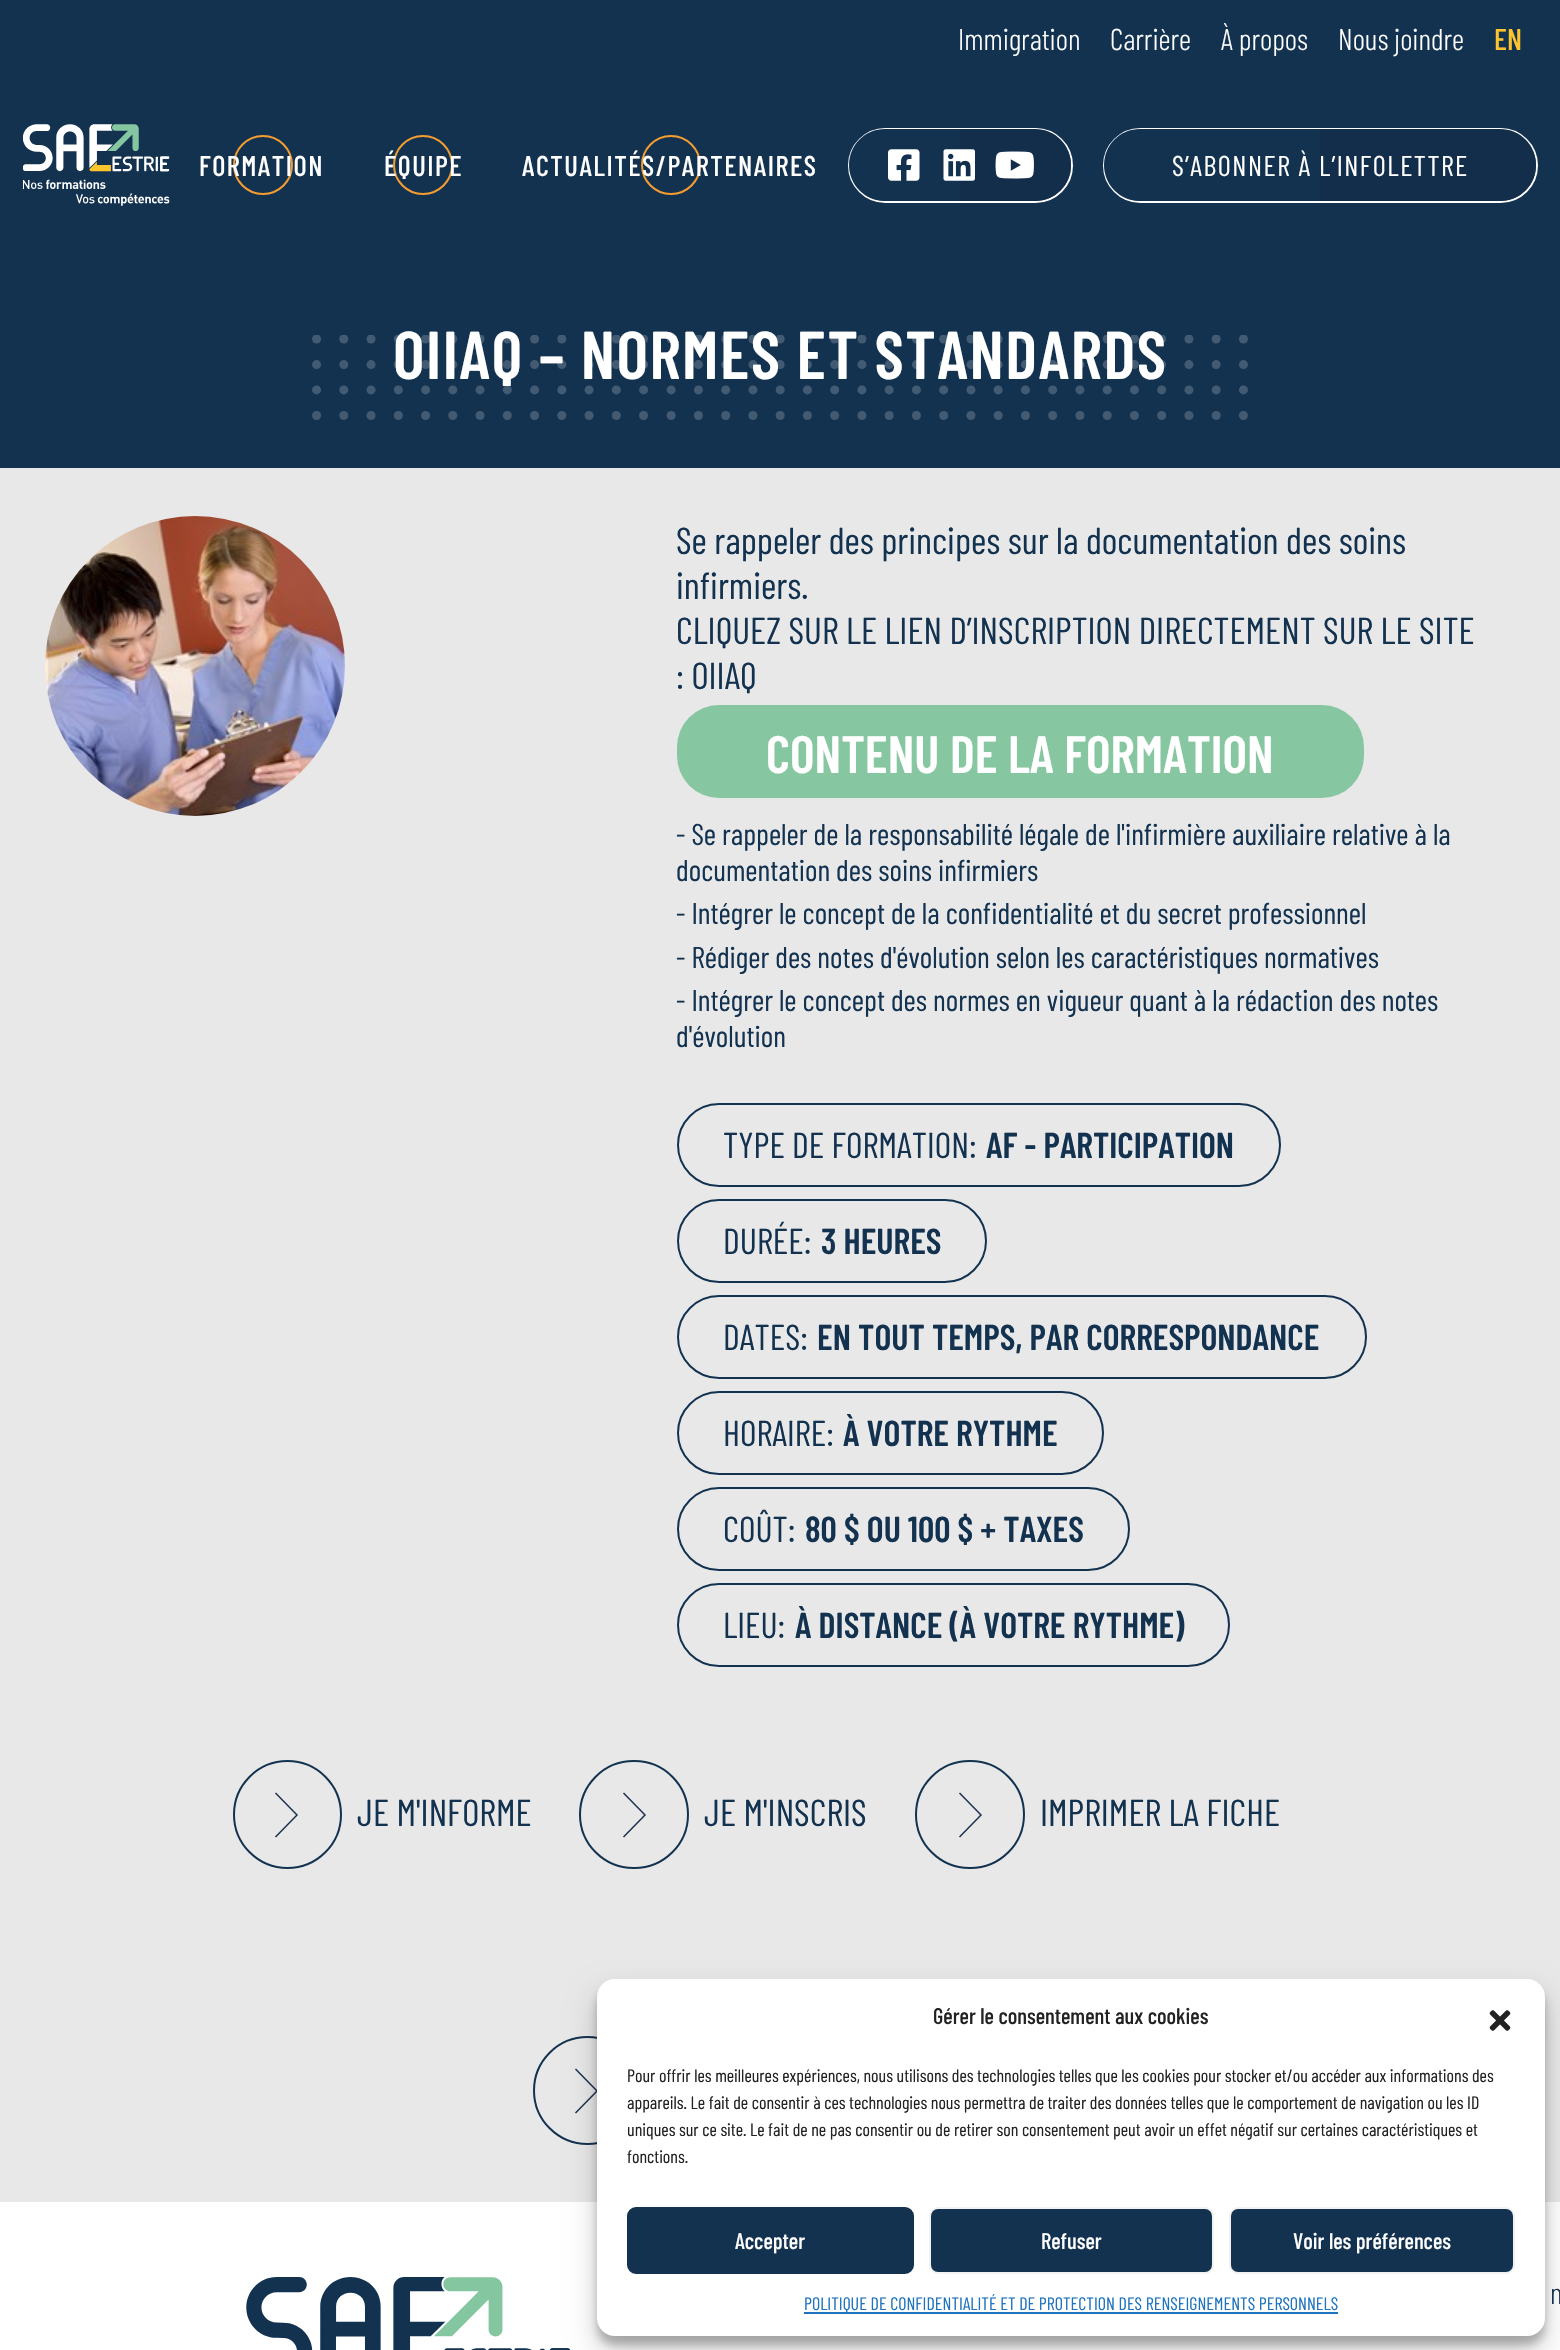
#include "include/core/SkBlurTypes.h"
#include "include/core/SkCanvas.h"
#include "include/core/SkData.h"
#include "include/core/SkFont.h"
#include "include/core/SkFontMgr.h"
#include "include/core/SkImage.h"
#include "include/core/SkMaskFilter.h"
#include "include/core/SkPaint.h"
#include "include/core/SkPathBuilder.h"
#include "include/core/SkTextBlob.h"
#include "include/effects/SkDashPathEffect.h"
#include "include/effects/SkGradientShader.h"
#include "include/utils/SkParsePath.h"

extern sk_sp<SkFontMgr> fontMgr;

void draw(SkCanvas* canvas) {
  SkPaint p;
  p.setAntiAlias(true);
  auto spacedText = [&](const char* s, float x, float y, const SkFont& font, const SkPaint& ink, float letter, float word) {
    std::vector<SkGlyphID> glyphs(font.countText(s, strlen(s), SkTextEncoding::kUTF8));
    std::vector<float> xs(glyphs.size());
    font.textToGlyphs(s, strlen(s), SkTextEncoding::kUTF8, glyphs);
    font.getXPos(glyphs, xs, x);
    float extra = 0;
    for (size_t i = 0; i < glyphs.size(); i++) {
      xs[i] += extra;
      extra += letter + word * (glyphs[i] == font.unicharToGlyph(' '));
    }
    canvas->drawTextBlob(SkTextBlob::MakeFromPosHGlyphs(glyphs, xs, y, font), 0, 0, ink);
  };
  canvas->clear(SkColorSetRGB(232, 232, 232));
  p.setColor(SkColorSetRGB(19, 50, 80));
  canvas->drawRect(SkRect::MakeLTRB(0, 0, 1560, 468), p);
  canvas->drawImageRect(SkImages::DeferredFromEncodedData(SkData::MakeFromFileName("images/1.png")), SkRect::MakeLTRB(23, 124, 170, 206), SkSamplingOptions());
  p.setStyle(SkPaint::kStroke_Style);
  p.setStrokeWidth(2);
  p.setColor(SkColorSetRGB(245, 158, 47));
  canvas->drawCircle(263, 165, 29, p);
  canvas->drawCircle(423, 165, 29, p);
  canvas->drawCircle(671, 165, 29, p);
  p.setColor(SK_ColorWHITE);
  canvas->drawRoundRect(SkRect::MakeLTRB(849, 129, 1072, 202), 36.5f, 36.5f, p);
  p.setStyle(SkPaint::kFill_Style);
  p.setColor(SkColorSetRGB(19, 50, 80));
  canvas->drawPath(SkPathBuilder().moveTo(885, 129).lineTo(960, 129).lineTo(960, 201).lineTo(885, 201).cubicTo(865, 201, 849, 185, 849, 165).cubicTo(849, 145, 865, 129, 885, 129).close().detach(), p);
  p.setColor(SkColorSetRGB(18, 46, 74));
  canvas->drawPath(SkPathBuilder().moveTo(960, 129).lineTo(1035, 129).cubicTo(1055, 129, 1071, 145, 1071, 165).cubicTo(1071, 185, 1055, 201, 1035, 201).lineTo(960, 201).close().detach(), p);
  canvas->drawImageRect(SkImages::DeferredFromEncodedData(SkData::MakeFromFileName("images/2.png")), SkRect::MakeLTRB(888, 149, 920, 181), SkSamplingOptions());
  canvas->drawImageRect(SkImages::DeferredFromEncodedData(SkData::MakeFromFileName("images/3.png")), SkRect::MakeLTRB(943, 149, 975, 181), SkSamplingOptions());
  canvas->drawImageRect(SkImages::DeferredFromEncodedData(SkData::MakeFromFileName("images/4.png")), SkRect::MakeLTRB(995, 151, 1034, 179), SkSamplingOptions());
  p.setStyle(SkPaint::kStroke_Style);
  p.setColor(SK_ColorWHITE);
  canvas->drawRoundRect(SkRect::MakeLTRB(1104, 129, 1537, 202), 36.5f, 36.5f, p);
  p.setStyle(SkPaint::kFill_Style);
  p.setColor(SkColorSetRGB(19, 50, 80));
  canvas->drawPath(SkPathBuilder().moveTo(1140, 129).lineTo(1320, 129).lineTo(1320, 201).lineTo(1140, 201).cubicTo(1120, 201, 1104, 185, 1104, 165).cubicTo(1104, 145, 1120, 129, 1140, 129).close().detach(), p);
  p.setColor(SkColorSetRGB(18, 46, 74));
  canvas->drawPath(SkPathBuilder().moveTo(1320, 129).lineTo(1500, 129).cubicTo(1520, 129, 1536, 145, 1536, 165).cubicTo(1536, 185, 1520, 201, 1500, 201).lineTo(1320, 201).close().detach(), p);
  canvas->drawImageRect(SkImages::DeferredFromEncodedData(SkData::MakeFromFileName("images/5.png")), SkRect::MakeLTRB(312, 335, 1248, 420), SkSamplingOptions());
  canvas->drawImageRect(SkImages::DeferredFromEncodedData(SkData::MakeFromFileName("images/6.png")), SkRect::MakeLTRB(45, 516, 345, 816), SkSamplingOptions());
  p.setColor(SkColorSetRGB(134, 198, 160));
  canvas->drawRoundRect(SkRect::MakeLTRB(677, 705, 1364, 798), 42, 42, p);
  p.setStyle(SkPaint::kStroke_Style);
  p.setColor(SkColorSetRGB(19, 50, 80));
  canvas->drawRoundRect(SkRect::MakeLTRB(678, 1104, 1280, 1186), 41, 41, p);
  canvas->drawRoundRect(SkRect::MakeLTRB(678, 1200, 986, 1282), 41, 41, p);
  canvas->drawRoundRect(SkRect::MakeLTRB(678, 1296, 1366, 1378), 41, 41, p);
  canvas->drawRoundRect(SkRect::MakeLTRB(678, 1392, 1103, 1474), 41, 41, p);
  canvas->drawRoundRect(SkRect::MakeLTRB(678, 1488, 1129, 1570), 41, 41, p);
  canvas->drawRoundRect(SkRect::MakeLTRB(678, 1584, 1229, 1666), 41, 41, p);
  p.setStrokeWidth(1.5f);
  p.setColor(SkColorSetRGB(28, 50, 78));
  canvas->drawPath(SkPathBuilder().moveTo(275.5f, 1793).lineTo(297, 1815).lineTo(275.5f, 1837).detach(), p);
  p.setStrokeWidth(2);
  p.setColor(SkColorSetRGB(19, 50, 80));
  canvas->drawCircle(287.5f, 1814.5f, 53.5f, p);
  p.setStrokeWidth(1.5f);
  p.setColor(SkColorSetRGB(28, 50, 78));
  canvas->drawPath(SkPathBuilder().moveTo(623.5f, 1793).lineTo(645, 1815).lineTo(623.5f, 1837).detach(), p);
  p.setStrokeWidth(2);
  p.setColor(SkColorSetRGB(19, 50, 80));
  canvas->drawRoundRect(SkRect::MakeLTRB(580, 1761, 688, 1868), 53.5f, 53.5f, p);
  p.setStrokeWidth(1.5f);
  p.setColor(SkColorSetRGB(28, 50, 78));
  canvas->drawPath(SkPathBuilder().moveTo(959.5f, 1793).lineTo(981, 1815).lineTo(959.5f, 1837).detach(), p);
  p.setStrokeWidth(2);
  p.setColor(SkColorSetRGB(19, 50, 80));
  canvas->drawRoundRect(SkRect::MakeLTRB(916, 1761, 1024, 1868), 53.5f, 53.5f, p);
  p.setStrokeWidth(1.5f);
  p.setColor(SkColorSetRGB(28, 50, 78));
  canvas->drawPath(SkPathBuilder().moveTo(575.5f, 2069).lineTo(597, 2091).lineTo(575.5f, 2113).detach(), p);
  p.setStrokeWidth(2);
  p.setColor(SkColorSetRGB(19, 50, 80));
  canvas->drawCircle(587.5f, 2090.5f, 53.5f, p);
  p.setStyle(SkPaint::kFill_Style);
  p.setColor(SK_ColorWHITE);
  canvas->drawRect(SkRect::MakeLTRB(0, 2202, 1560, 2350), p);
  p.setColor(SkColorSetARGB(59, 0, 0, 0));
  p.setMaskFilter(SkMaskFilter::MakeBlur(kNormal_SkBlurStyle, 4.5f));
  canvas->drawRoundRect(SkRect::MakeLTRB(597, 1988, 1545, 2345), 18, 18, p);
  p.setMaskFilter(nullptr);
  canvas->drawImageRect(SkImages::DeferredFromEncodedData(SkData::MakeFromFileName("images/8.png")), SkRect::MakeLTRB(246, 2277, 571, 2350), SkSamplingOptions());
  p.setColor(SkColorSetARGB(48, 0, 0, 0));
  p.setMaskFilter(SkMaskFilter::MakeBlur(kNormal_SkBlurStyle, 15));
  canvas->drawRoundRect(SkRect::MakeLTRB(597, 1994, 1545, 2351), 18, 18, p);
  p.setMaskFilter(nullptr);
  p.setColor(SK_ColorWHITE);
  canvas->drawRoundRect(SkRect::MakeLTRB(597, 1979, 1545, 2336), 18, 18, p);
  canvas->drawImageRect(SkImages::DeferredFromEncodedData(SkData::MakeFromFileName("images/7.png")), SkRect::MakeLTRB(1489, 2010, 1511, 2031), SkSamplingOptions());
  p.setColor(SkColorSetRGB(19, 50, 80));
  canvas->drawRoundRect(SkRect::MakeLTRB(628, 2208, 913, 2273), 8, 8, p);
  p.setStyle(SkPaint::kStroke_Style);
  canvas->drawRoundRect(SkRect::MakeLTRB(628, 2208, 913, 2273), 8, 8, p);
  p.setStyle(SkPaint::kFill_Style);
  canvas->drawRoundRect(SkRect::MakeLTRB(930, 2208, 1213, 2273), 8, 8, p);
  p.setStyle(SkPaint::kStroke_Style);
  p.setColor(SkColorSetRGB(242, 242, 242));
  canvas->drawRoundRect(SkRect::MakeLTRB(930, 2208, 1213, 2273), 8, 8, p);
  p.setStyle(SkPaint::kFill_Style);
  p.setColor(SkColorSetRGB(19, 50, 80));
  canvas->drawRoundRect(SkRect::MakeLTRB(1230, 2208, 1514, 2273), 8, 8, p);
  p.setStyle(SkPaint::kStroke_Style);
  p.setColor(SkColorSetRGB(242, 242, 242));
  canvas->drawRoundRect(SkRect::MakeLTRB(1230, 2208, 1514, 2273), 8, 8, p);
  p.setStyle(SkPaint::kFill_Style);
  p.setColor(SkColorSetRGB(30, 115, 190));
  canvas->drawRect(SkRect::MakeLTRB(804, 2312, 1338, 2314), p);
  SkFont font1(fontMgr->matchFamilyStyle("Barlow Condensed", SkFontStyle(300, SkFontStyle::kNormal_Width, SkFontStyle::kUpright_Slant)), 30);
  font1.setSubpixel(true);
  p.setColor(SK_ColorWHITE);
  canvas->drawString("Immigration", 958, 50, font1, p);
  canvas->drawString("Carrière", 1110, 50, font1, p);
  canvas->drawString("À propos", 1221, 50, font1, p);
  canvas->drawString("Nous joindre", 1338, 50, font1, p);
  SkFont font2(fontMgr->matchFamilyStyle("Barlow Condensed", SkFontStyle(500, SkFontStyle::kNormal_Width, SkFontStyle::kUpright_Slant)), 30);
  font2.setSubpixel(true);
  p.setColor(SkColorSetRGB(253, 196, 45));
  canvas->drawString("EN", 1494, 50, font2, p);
  SkFont font3(fontMgr->matchFamilyStyle("Barlow Condensed", SkFontStyle(500, SkFontStyle::kNormal_Width, SkFontStyle::kUpright_Slant)), 28.5f);
  font3.setSubpixel(true);
  p.setColor(SK_ColorWHITE);
  spacedText("FORMATION", 199, 176, font3, p, 1.5f, 0);
  spacedText("ÉQUIPE", 384, 176, font3, p, 1.5f, 0);
  spacedText("ACTUALITÉS/PARTENAIRES", 522, 176, font3, p, 1.5f, 0);
  SkFont font4(fontMgr->matchFamilyStyle("Barlow Condensed", SkFontStyle::Normal()), 28.5f);
  font4.setSubpixel(true);
  spacedText("S’ABONNER À L’INFOLETTRE", 1172, 176, font4, p, 1.5f, 0);
  SkFont font5(fontMgr->matchFamilyStyle("Barlow Condensed", SkFontStyle(600, SkFontStyle::kNormal_Width, SkFontStyle::kUpright_Slant)), 67.5f);
  font5.setSubpixel(true);
  spacedText("OIIAQ – NORMES ET STANDARDS", 393, 379, font5, p, 1.5f, 0);
  SkFont font6(fontMgr->matchFamilyStyle("Barlow Condensed", SkFontStyle::Normal()), 37.5f);
  font6.setSubpixel(true);
  p.setColor(SkColorSetRGB(19, 50, 80));
  canvas->drawString("Se rappeler des principes sur la documentation des soins", 676, 554, font6, p);
  canvas->drawString("infirmiers.", 676, 599, font6, p);
  canvas->drawString("CLIQUEZ SUR LE LIEN D’INSCRIPTION DIRECTEMENT SUR LE SITE", 676, 644, font6, p);
  canvas->drawString(": OIIAQ", 676, 689, font6, p);
  SkFont font7(fontMgr->matchFamilyStyle("Barlow Condensed", SkFontStyle(600, SkFontStyle::kNormal_Width, SkFontStyle::kUpright_Slant)), 52.5f);
  font7.setSubpixel(true);
  p.setColor(SK_ColorWHITE);
  canvas->drawString("CONTENU DE LA FORMATION", 766, 773, font7, p);
  SkFont font8(fontMgr->matchFamilyStyle("Barlow Condensed", SkFontStyle::Normal()), 30);
  font8.setSubpixel(true);
  p.setColor(SkColorSetRGB(19, 50, 80));
  canvas->drawString("- Se rappeler de la responsabilité légale de l'infirmière auxiliaire relative à la", 676, 845, font8, p);
  canvas->drawString("documentation des soins infirmiers", 676, 881, font8, p);
  canvas->drawString("- Intégrer le concept de la confidentialité et du secret professionnel", 676, 924, font8, p);
  canvas->drawString("- Rédiger des notes d'évolution selon les caractéristiques normatives", 676, 968, font8, p);
  canvas->drawString("- Intégrer le concept des normes en vigueur quant à la rédaction des notes", 676, 1011, font8, p);
  canvas->drawString("d'évolution", 676, 1047, font8, p);
  SkFont font9(fontMgr->matchFamilyStyle("Barlow Condensed", SkFontStyle::Normal()), 36);
  font9.setSubpixel(true);
  canvas->drawString("TYPE DE FORMATION :", 723, 1158, font9, p);
  SkFont font10(fontMgr->matchFamilyStyle("Barlow Condensed", SkFontStyle(600, SkFontStyle::kNormal_Width, SkFontStyle::kUpright_Slant)), 36);
  font10.setSubpixel(true);
  canvas->drawString("AF - PARTICIPATION", 986, 1158, font10, p);
  canvas->drawString("DURÉE :", 723, 1254, font9, p);
  canvas->drawString("3 HEURES", 821, 1254, font10, p);
  canvas->drawString("DATES :", 723, 1350, font9, p);
  canvas->drawString("EN TOUT TEMPS, PAR CORRESPONDANCE", 817, 1350, font10, p);
  canvas->drawString("HORAIRE :", 723, 1446, font9, p);
  canvas->drawString("À VOTRE RYTHME", 843, 1446, font10, p);
  canvas->drawString("COÛT :", 723, 1542, font9, p);
  canvas->drawString("80 $ OU 100 $ + TAXES", 805, 1542, font10, p);
  canvas->drawString("LIEU :", 723, 1638, font9, p);
  canvas->drawString("À DISTANCE (À VOTRE RYTHME)", 795, 1638, font10, p);
  canvas->drawString("JE M'INFORME", 357, 1826, font6, p);
  canvas->drawString("JE M'INSCRIS", 704, 1826, font6, p);
  canvas->drawString("IMPRIMER LA FICHE", 1040, 1826, font6, p);
  SkFont font11(fontMgr->matchFamilyStyle("Barlow Condensed", SkFontStyle(500, SkFontStyle::kNormal_Width, SkFontStyle::kUpright_Slant)), 22.5f);
  font11.setSubpixel(true);
  p.setColor(SkColorSetRGB(34, 34, 34));
  canvas->drawString("Gérer le consentement aux cookies", 933, 2024, font11, p);
  SkFont font12(fontMgr->matchFamilyStyle("Barlow Condensed", SkFontStyle::Normal()), 18);
  font12.setSubpixel(true);
  canvas->drawString("Pour offrir les meilleures expériences, nous utilisons des technologies telles que les cookies pour stocker et/ou accéder aux informations des", 627, 2082, font12, p);
  canvas->drawString("appareils. Le fait de consentir à ces technologies nous permettra de traiter des données telles que le comportement de navigation ou les ID", 627, 2109, font12, p);
  canvas->drawString("uniques sur ce site. Le fait de ne pas consentir ou de retirer son consentement peut avoir un effet négatif sur certaines caractéristiques et", 627, 2136, font12, p);
  canvas->drawString("fonctions.", 627, 2163, font12, p);
  p.setColor(SK_ColorWHITE);
  canvas->drawString("Accepter", 735, 2249, font11, p);
  canvas->drawString("Refuser", 1041, 2249, font11, p);
  canvas->drawString("Voir les préférences", 1293, 2249, font11, p);
  p.setColor(SkColorSetRGB(30, 115, 190));
  canvas->drawString("POLITIQUE DE CONFIDENTIALITÉ ET DE PROTECTION DES RENSEIGNEMENTS PERSONNELS", 804, 2310, font12, p);
  p.setColor(SkColorSetRGB(19, 50, 80));
  canvas->drawString("n", 1550, 2304, font1, p);
}
